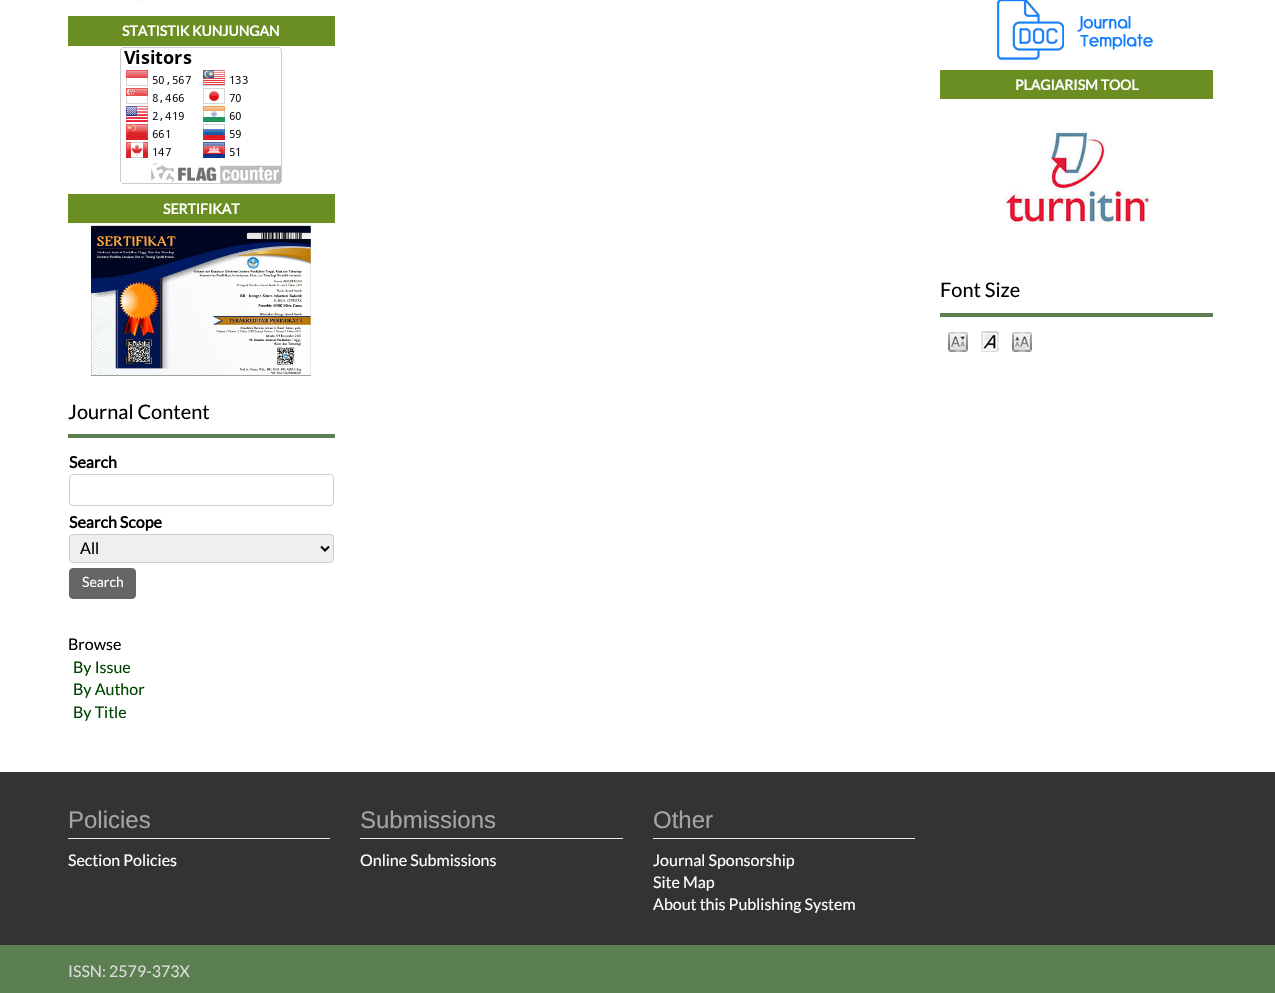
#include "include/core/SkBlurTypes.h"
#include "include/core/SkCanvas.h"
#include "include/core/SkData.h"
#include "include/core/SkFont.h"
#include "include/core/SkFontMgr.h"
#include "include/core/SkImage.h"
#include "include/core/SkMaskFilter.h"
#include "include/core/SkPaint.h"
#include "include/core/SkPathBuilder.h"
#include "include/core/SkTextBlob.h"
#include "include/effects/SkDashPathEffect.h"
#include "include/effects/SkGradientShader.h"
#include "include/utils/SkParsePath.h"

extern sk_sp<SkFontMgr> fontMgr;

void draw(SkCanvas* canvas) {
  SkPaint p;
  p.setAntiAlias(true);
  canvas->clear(SK_ColorWHITE);
  canvas->drawImageRect(SkImages::DeferredFromEncodedData(SkData::MakeFromFileName("images/1.png")), SkRect::MakeLTRB(139, 0, 144, 2), SkSamplingOptions());
  p.setColor(SkColorSetRGB(107, 142, 35));
  canvas->drawRect(SkRect::MakeLTRB(68, 16, 335, 46), p);
  canvas->drawImageRect(SkImages::DeferredFromEncodedData(SkData::MakeFromFileName("images/2.png")), SkRect::MakeLTRB(120, 47, 282, 184), SkSamplingOptions());
  canvas->drawRect(SkRect::MakeLTRB(68, 194, 335, 223), p);
  canvas->drawImageRect(SkImages::DeferredFromEncodedData(SkData::MakeFromFileName("images/3.png")), SkRect::MakeLTRB(91, 225, 311, 376), SkSamplingOptions());
  p.setColor(SkColorSetRGB(91, 127, 81));
  canvas->drawRect(SkRect::MakeLTRB(68, 434, 335, 438), p);
  p.setStyle(SkPaint::kStroke_Style);
  p.setStrokeWidth(1);
  p.setColor(SkColorSetRGB(204, 204, 204));
  canvas->drawRoundRect(SkRect::MakeLTRB(69.5f, 474.5f, 333.5f, 505.5f), 3.5f, 3.5f, p);
  p.setStyle(SkPaint::kFill_Style);
  p.setColor(SkColorSetRGB(239, 239, 239));
  canvas->drawRoundRect(SkRect::MakeLTRB(69.5f, 534.5f, 333.5f, 562.5f), 3.5f, 3.5f, p);
  p.setStyle(SkPaint::kStroke_Style);
  p.setColor(SkColorSetRGB(204, 204, 204));
  canvas->drawRoundRect(SkRect::MakeLTRB(69.5f, 534.5f, 333.5f, 562.5f), 3.5f, 3.5f, p);
  p.setStrokeWidth(2);
  p.setColor(SK_ColorBLACK);
  canvas->drawPath(SkPathBuilder().moveTo(321, 546.5f).lineTo(325, 550.5f).lineTo(329, 546.5f).detach(), p);
  p.setStyle(SkPaint::kFill_Style);
  p.setColor(SkColorSetRGB(102, 102, 102));
  canvas->drawRoundRect(SkRect::MakeLTRB(69.5f, 568.5f, 135.5f, 598.5f), 3.5f, 3.5f, p);
  p.setStyle(SkPaint::kStroke_Style);
  p.setStrokeWidth(1);
  canvas->drawRoundRect(SkRect::MakeLTRB(69.5f, 568.5f, 135.5f, 598.5f), 3.5f, 3.5f, p);
  canvas->drawImageRect(SkImages::DeferredFromEncodedData(SkData::MakeFromFileName("images/4.png")), SkRect::MakeLTRB(997, 0, 1153, 60), SkSamplingOptions());
  p.setStyle(SkPaint::kFill_Style);
  p.setColor(SkColorSetRGB(107, 142, 35));
  canvas->drawRect(SkRect::MakeLTRB(940, 70, 1213, 99), p);
  canvas->drawImageRect(SkImages::DeferredFromEncodedData(SkData::MakeFromFileName("images/5.png")), SkRect::MakeLTRB(1002, 128, 1149, 224), SkSamplingOptions());
  p.setColor(SkColorSetRGB(91, 127, 81));
  canvas->drawRect(SkRect::MakeLTRB(940, 313, 1213, 317), p);
  canvas->drawImageRect(SkImages::DeferredFromEncodedData(SkData::MakeFromFileName("images/6.png")), SkRect::MakeLTRB(948, 332, 968, 352), SkSamplingOptions());
  canvas->drawImageRect(SkImages::DeferredFromEncodedData(SkData::MakeFromFileName("images/7.png")), SkRect::MakeLTRB(981, 331, 999, 352), SkSamplingOptions());
  canvas->drawImageRect(SkImages::DeferredFromEncodedData(SkData::MakeFromFileName("images/8.png")), SkRect::MakeLTRB(1012, 332, 1032, 352), SkSamplingOptions());
  p.setColor(SkColorSetRGB(51, 51, 51));
  canvas->drawRect(SkRect::MakeLTRB(0, 772, 1275, 945), p);
  p.setColor(SkColorSetRGB(231, 231, 231));
  canvas->drawRect(SkRect::MakeLTRB(68, 838, 330, 839), p);
  canvas->drawRect(SkRect::MakeLTRB(360, 838, 623, 839), p);
  canvas->drawRect(SkRect::MakeLTRB(653, 838, 915, 839), p);
  p.setColor(SkColorSetRGB(91, 127, 81));
  canvas->drawRect(SkRect::MakeLTRB(0, 945, 1275, 993), p);
  SkFont font1(fontMgr->matchFamilyStyle("Lato", SkFontStyle::Bold()), 14);
  font1.setSubpixel(true);
  p.setColor(SK_ColorWHITE);
  canvas->drawString("STATISTIK KUNJUNGAN", 122, 36, font1, p);
  canvas->drawString("SERTIFIKAT", 163, 214, font1, p);
  SkFont font2(fontMgr->matchFamilyStyle("Lato", SkFontStyle::Normal()), 20);
  font2.setSubpixel(true);
  p.setColor(SK_ColorBLACK);
  canvas->drawString("Journal Content", 68, 419, font2, p);
  SkFont font3(fontMgr->matchFamilyStyle("Lato", SkFontStyle::Bold()), 16);
  font3.setSubpixel(true);
  canvas->drawString("Search", 69, 468, font3, p);
  canvas->drawString("Search Scope", 69, 528, font3, p);
  SkFont font4(fontMgr->matchFamilyStyle("Lato", SkFontStyle::Normal()), 16);
  font4.setSubpixel(true);
  canvas->drawString("All", 80, 554, font4, p);
  SkFont font5(fontMgr->matchFamilyStyle("Lato", SkFontStyle::Normal()), 14);
  font5.setSubpixel(true);
  p.setColor(SK_ColorWHITE);
  canvas->drawString("Search", 82, 587, font5, p);
  p.setColor(SK_ColorBLACK);
  canvas->drawString("Browse", 68, 650, font4, p);
  p.setColor(SkColorSetRGB(0, 68, 0));
  canvas->drawString("By Issue", 73, 673, font4, p);
  canvas->drawString("By Author", 73, 695, font4, p);
  canvas->drawString("By Title", 73, 718, font4, p);
  p.setColor(SK_ColorWHITE);
  canvas->drawString("PLAGIARISM TOOL", 1015, 90, font1, p);
  p.setColor(SK_ColorBLACK);
  canvas->drawString("Font Size", 940, 297, font2, p);
  SkFont font6(fontMgr->matchFamilyStyle("Liberation Sans", SkFontStyle::Normal()), 24);
  font6.setSubpixel(true);
  p.setColor(SkColorSetRGB(165, 165, 165));
  canvas->drawString("Policies", 68, 828, font6, p);
  p.setColor(SK_ColorWHITE);
  canvas->drawString("Section Policies", 68, 866, font4, p);
  p.setColor(SkColorSetRGB(165, 165, 165));
  canvas->drawString("Submissions", 360, 828, font6, p);
  p.setColor(SK_ColorWHITE);
  canvas->drawString("Online Submissions", 360, 866, font4, p);
  p.setColor(SkColorSetRGB(165, 165, 165));
  canvas->drawString("Other", 653, 828, font6, p);
  p.setColor(SK_ColorWHITE);
  canvas->drawString("Journal Sponsorship", 653, 866, font4, p);
  canvas->drawString("Site Map", 653, 888, font4, p);
  canvas->drawString("About this Publishing System", 653, 910, font4, p);
  p.setColor(SkColorSetRGB(221, 221, 221));
  canvas->drawString("ISSN: 2579-373X", 68, 977, font4, p);
}
